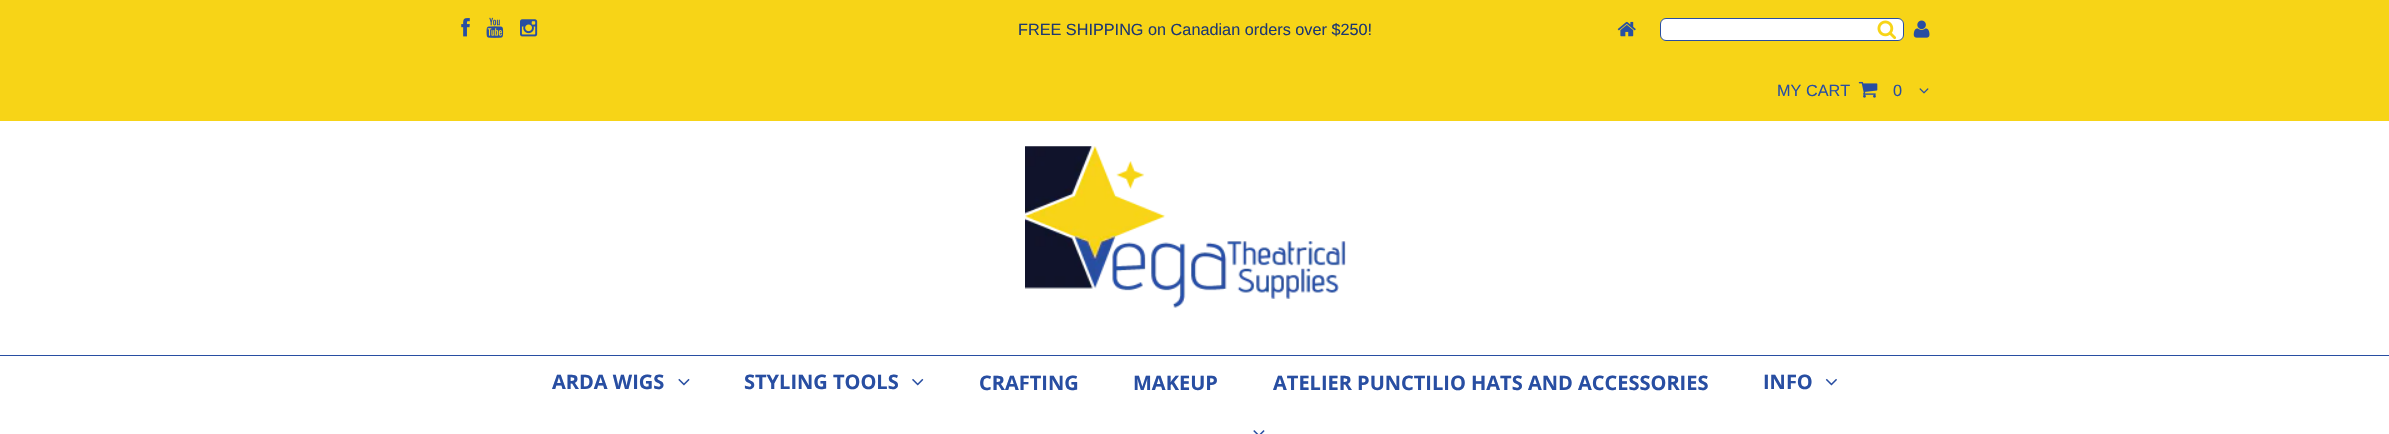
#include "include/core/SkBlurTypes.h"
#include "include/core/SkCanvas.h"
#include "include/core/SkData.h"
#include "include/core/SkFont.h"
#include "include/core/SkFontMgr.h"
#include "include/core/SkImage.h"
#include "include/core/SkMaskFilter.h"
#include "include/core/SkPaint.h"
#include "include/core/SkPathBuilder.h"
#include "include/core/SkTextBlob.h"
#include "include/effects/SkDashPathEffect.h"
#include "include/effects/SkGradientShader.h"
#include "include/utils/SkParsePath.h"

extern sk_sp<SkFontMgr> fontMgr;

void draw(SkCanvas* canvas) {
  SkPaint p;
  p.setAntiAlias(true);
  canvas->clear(SK_ColorWHITE);
  p.setColor(SkColorSetRGB(247, 212, 23));
  canvas->drawRect(SkRect::MakeLTRB(0, 0, 2389, 121), p);
  canvas->drawImageRect(SkImages::DeferredFromEncodedData(SkData::MakeFromFileName("images/1.png")), SkRect::MakeLTRB(461, 18, 470, 37), SkSamplingOptions());
  canvas->drawImageRect(SkImages::DeferredFromEncodedData(SkData::MakeFromFileName("images/2.png")), SkRect::MakeLTRB(486, 17, 504, 38), SkSamplingOptions());
  canvas->drawImageRect(SkImages::DeferredFromEncodedData(SkData::MakeFromFileName("images/3.png")), SkRect::MakeLTRB(520, 19, 538, 37), SkSamplingOptions());
  canvas->drawImageRect(SkImages::DeferredFromEncodedData(SkData::MakeFromFileName("images/4.png")), SkRect::MakeLTRB(1617, 21, 1636, 37), SkSamplingOptions());
  p.setColor(SK_ColorWHITE);
  canvas->drawRoundRect(SkRect::MakeLTRB(1660.5f, 18.5f, 1903.5f, 40.5f), 5.5f, 5.5f, p);
  p.setStyle(SkPaint::kStroke_Style);
  p.setStrokeWidth(1);
  p.setColor(SkColorSetRGB(40, 78, 162));
  canvas->drawRoundRect(SkRect::MakeLTRB(1660.5f, 18.5f, 1903.5f, 40.5f), 5.5f, 5.5f, p);
  canvas->drawImageRect(SkImages::DeferredFromEncodedData(SkData::MakeFromFileName("images/5.png")), SkRect::MakeLTRB(1877, 20, 1897, 40), SkSamplingOptions());
  canvas->drawImageRect(SkImages::DeferredFromEncodedData(SkData::MakeFromFileName("images/6.png")), SkRect::MakeLTRB(1913, 20, 1930, 38), SkSamplingOptions());
  canvas->drawImageRect(SkImages::DeferredFromEncodedData(SkData::MakeFromFileName("images/7.png")), SkRect::MakeLTRB(1858, 81, 1878, 98), SkSamplingOptions());
  canvas->drawImageRect(SkImages::DeferredFromEncodedData(SkData::MakeFromFileName("images/8.png")), SkRect::MakeLTRB(1919, 88, 1929, 94), SkSamplingOptions());
  canvas->drawImageRect(SkImages::DeferredFromEncodedData(SkData::MakeFromFileName("images/9.png")), SkRect::MakeLTRB(1025, 146, 1346, 308), SkSamplingOptions());
  p.setStyle(SkPaint::kFill_Style);
  canvas->drawRect(SkRect::MakeLTRB(0, 355, 2389, 356), p);
  canvas->drawImageRect(SkImages::DeferredFromEncodedData(SkData::MakeFromFileName("images/10.png")), SkRect::MakeLTRB(678, 378, 690, 386), SkSamplingOptions());
  canvas->drawImageRect(SkImages::DeferredFromEncodedData(SkData::MakeFromFileName("images/11.png")), SkRect::MakeLTRB(912, 378, 924, 386), SkSamplingOptions());
  canvas->drawImageRect(SkImages::DeferredFromEncodedData(SkData::MakeFromFileName("images/12.png")), SkRect::MakeLTRB(1825, 378, 1837, 386), SkSamplingOptions());
  canvas->drawImageRect(SkImages::DeferredFromEncodedData(SkData::MakeFromFileName("images/13.png")), SkRect::MakeLTRB(1253, 430, 1265, 434), SkSamplingOptions());
  SkFont font1(fontMgr->matchFamilyStyle("Liberation Sans", SkFontStyle::Normal()), 16.25f);
  font1.setSubpixel(true);
  p.setColor(SkColorSetRGB(30, 56, 112));
  canvas->drawString("FREE SHIPPING on Canadian orders over $250!", 1018, 35, font1, p);
  p.setColor(SkColorSetRGB(40, 78, 162));
  canvas->drawString("MY CART", 1777, 96, font1, p);
  canvas->drawString("0", 1893, 96, font1, p);
  SkFont font2(fontMgr->matchFamilyStyle("Open Sans", SkFontStyle::Bold()), 20);
  font2.setSubpixel(true);
  canvas->drawString("ARDA WIGS", 552, 389, font2, p);
  canvas->drawString("STYLING TOOLS", 744, 389, font2, p);
  canvas->drawString("CRAFTING", 979, 390, font2, p);
  canvas->drawString("MAKEUP", 1133, 390, font2, p);
  canvas->drawString("ATELIER PUNCTILIO HATS AND ACCESSORIES", 1273, 390, font2, p);
  canvas->drawString("INFO", 1763, 389, font2, p);
}
